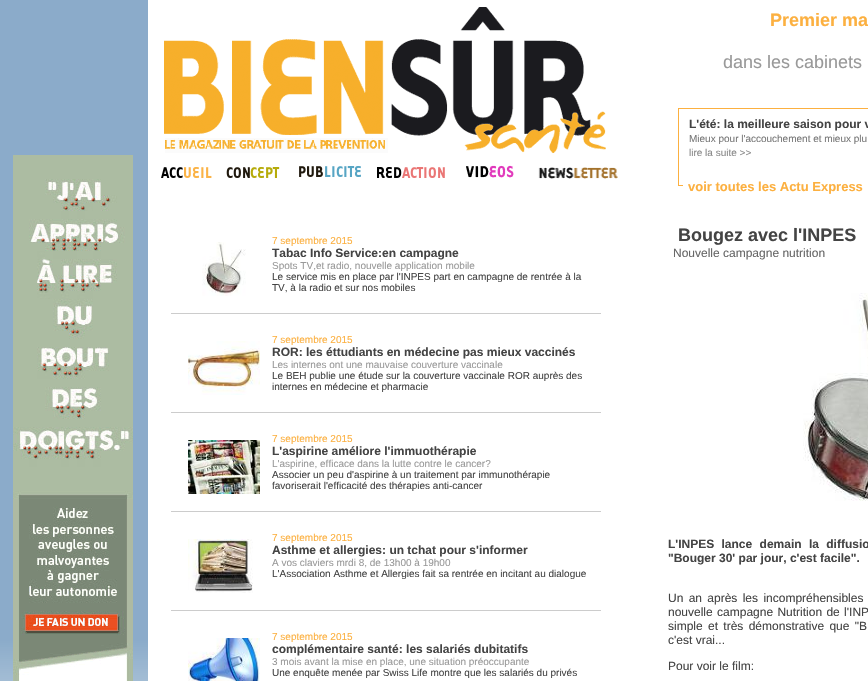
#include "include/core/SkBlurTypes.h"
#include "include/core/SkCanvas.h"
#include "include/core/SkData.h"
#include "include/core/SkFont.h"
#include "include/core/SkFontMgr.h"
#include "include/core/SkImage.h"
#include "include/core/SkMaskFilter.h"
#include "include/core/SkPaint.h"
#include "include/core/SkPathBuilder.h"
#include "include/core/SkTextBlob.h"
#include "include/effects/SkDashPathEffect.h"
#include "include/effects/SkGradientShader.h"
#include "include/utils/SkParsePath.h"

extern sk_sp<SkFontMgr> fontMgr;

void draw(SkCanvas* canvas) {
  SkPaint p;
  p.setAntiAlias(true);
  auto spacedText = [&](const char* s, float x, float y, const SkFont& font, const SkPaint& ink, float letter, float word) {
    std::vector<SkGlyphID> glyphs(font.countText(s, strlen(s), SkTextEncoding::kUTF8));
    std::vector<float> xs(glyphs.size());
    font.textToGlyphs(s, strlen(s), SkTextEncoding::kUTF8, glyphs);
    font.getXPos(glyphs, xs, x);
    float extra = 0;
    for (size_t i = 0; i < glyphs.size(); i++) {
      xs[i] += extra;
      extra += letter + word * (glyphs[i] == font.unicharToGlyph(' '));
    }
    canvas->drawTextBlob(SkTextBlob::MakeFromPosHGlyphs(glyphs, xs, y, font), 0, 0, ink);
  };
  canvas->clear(SK_ColorWHITE);
  canvas->drawImageRect(SkImages::DeferredFromEncodedData(SkData::MakeFromFileName("images/1.png")), SkRect::MakeLTRB(0, 0, 148, 681), SkSamplingOptions());
  canvas->drawImageRect(SkImages::DeferredFromEncodedData(SkData::MakeFromFileName("images/2.png")), SkRect::MakeLTRB(164, 7, 606, 153), SkSamplingOptions());
  canvas->drawImageRect(SkImages::DeferredFromEncodedData(SkData::MakeFromFileName("images/3.png")), SkRect::MakeLTRB(161, 167, 212, 178), SkSamplingOptions());
  canvas->drawImageRect(SkImages::DeferredFromEncodedData(SkData::MakeFromFileName("images/4.png")), SkRect::MakeLTRB(226, 167, 280, 178), SkSamplingOptions());
  canvas->drawImageRect(SkImages::DeferredFromEncodedData(SkData::MakeFromFileName("images/5.png")), SkRect::MakeLTRB(299, 166, 361, 177), SkSamplingOptions());
  canvas->drawImageRect(SkImages::DeferredFromEncodedData(SkData::MakeFromFileName("images/6.png")), SkRect::MakeLTRB(377, 167, 445, 178), SkSamplingOptions());
  canvas->drawImageRect(SkImages::DeferredFromEncodedData(SkData::MakeFromFileName("images/7.png")), SkRect::MakeLTRB(466, 165, 514, 178), SkSamplingOptions());
  canvas->drawImageRect(SkImages::DeferredFromEncodedData(SkData::MakeFromFileName("images/8.png")), SkRect::MakeLTRB(538, 167, 618, 179), SkSamplingOptions());
  p.setStyle(SkPaint::kStroke_Style);
  p.setStrokeWidth(1);
  p.setColor(SkColorSetRGB(252, 176, 64));
  canvas->drawRect(SkRect::MakeLTRB(678.5f, 108.5f, 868.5f, 185.5f), p);
  p.setStyle(SkPaint::kFill_Style);
  p.setColor(SK_ColorWHITE);
  canvas->drawRect(SkRect::MakeLTRB(683, 185, 868, 186), p);
  canvas->drawImageRect(SkImages::DeferredFromEncodedData(SkData::MakeFromFileName("images/9.png")), SkRect::MakeLTRB(13, 155, 133, 681), SkSamplingOptions());
  p.setColor(SkColorSetRGB(204, 204, 204));
  canvas->drawRect(SkRect::MakeLTRB(171, 313, 601, 314), p);
  canvas->drawImageRect(SkImages::DeferredFromEncodedData(SkData::MakeFromFileName("images/10.png")), SkRect::MakeLTRB(202, 242, 246, 296), SkSamplingOptions());
  canvas->drawRect(SkRect::MakeLTRB(171, 412, 601, 413), p);
  canvas->drawImageRect(SkImages::DeferredFromEncodedData(SkData::MakeFromFileName("images/11.png")), SkRect::MakeLTRB(188, 341, 260, 395), SkSamplingOptions());
  canvas->drawRect(SkRect::MakeLTRB(171, 511, 601, 512), p);
  canvas->drawImageRect(SkImages::DeferredFromEncodedData(SkData::MakeFromFileName("images/12.png")), SkRect::MakeLTRB(188, 440, 260, 494), SkSamplingOptions());
  canvas->drawRect(SkRect::MakeLTRB(171, 610, 601, 611), p);
  canvas->drawImageRect(SkImages::DeferredFromEncodedData(SkData::MakeFromFileName("images/13.png")), SkRect::MakeLTRB(188, 539, 253, 593), SkSamplingOptions());
  canvas->drawImageRect(SkImages::DeferredFromEncodedData(SkData::MakeFromFileName("images/14.png")), SkRect::MakeLTRB(188, 638, 260, 681), SkSamplingOptions());
  canvas->drawImageRect(SkImages::DeferredFromEncodedData(SkData::MakeFromFileName("images/15.png")), SkRect::MakeLTRB(803, 293, 868, 501), SkSamplingOptions());
  SkFont font1(fontMgr->matchFamilyStyle("Liberation Sans", SkFontStyle::Bold()), 18);
  font1.setSubpixel(true);
  p.setColor(SkColorSetRGB(252, 176, 64));
  canvas->drawString("Premier ma", 770, 26, font1, p);
  SkFont font2(fontMgr->matchFamilyStyle("Liberation Sans", SkFontStyle::Normal()), 18);
  font2.setSubpixel(true);
  p.setColor(SkColorSetRGB(153, 153, 153));
  canvas->drawString("dans les cabinets", 723, 68, font2, p);
  SkFont font3(fontMgr->matchFamilyStyle("Liberation Sans", SkFontStyle::Bold()), 12);
  font3.setSubpixel(true);
  p.setColor(SkColorSetRGB(68, 68, 68));
  canvas->drawString("L'été: la meilleure saison pour v", 689, 128, font3, p);
  SkFont font4(fontMgr->matchFamilyStyle("Liberation Sans", SkFontStyle::Normal()), 10);
  font4.setSubpixel(true);
  p.setColor(SkColorSetRGB(119, 119, 119));
  canvas->drawString("Mieux pour l'accouchement et mieux plu", 689, 142, font4, p);
  p.setColor(SkColorSetRGB(136, 136, 136));
  canvas->drawString("lire la suite >>", 689, 156, font4, p);
  SkFont font5(fontMgr->matchFamilyStyle("Liberation Sans", SkFontStyle::Bold()), 13);
  font5.setSubpixel(true);
  p.setColor(SkColorSetRGB(252, 176, 64));
  canvas->drawString("voir toutes les Actu Express", 688, 191, font5, p);
  canvas->drawString("7 septembre 2015", 272, 244, font4, p);
  p.setColor(SkColorSetRGB(68, 68, 68));
  canvas->drawString("Tabac Info Service:en campagne", 272, 257, font3, p);
  p.setColor(SkColorSetRGB(153, 153, 153));
  canvas->drawString("Spots TV,et radio, nouvelle application mobile", 272, 269, font4, p);
  p.setColor(SkColorSetRGB(68, 68, 68));
  canvas->drawString("Le service mis en place par l'INPES part en campagne de rentrée à la", 272, 280, font4, p);
  canvas->drawString("TV, à la radio et sur nos mobiles", 272, 291, font4, p);
  p.setColor(SkColorSetRGB(252, 176, 64));
  canvas->drawString("7 septembre 2015", 272, 343, font4, p);
  p.setColor(SkColorSetRGB(68, 68, 68));
  canvas->drawString("ROR: les éttudiants en médecine pas mieux vaccinés", 272, 356, font3, p);
  p.setColor(SkColorSetRGB(153, 153, 153));
  canvas->drawString("Les internes ont une mauvaise couverture vaccinale", 272, 368, font4, p);
  p.setColor(SkColorSetRGB(68, 68, 68));
  canvas->drawString("Le BEH publie une étude sur la couverture vaccinale ROR auprès des", 272, 379, font4, p);
  canvas->drawString("internes en médecine et pharmacie", 272, 390, font4, p);
  p.setColor(SkColorSetRGB(252, 176, 64));
  canvas->drawString("7 septembre 2015", 272, 442, font4, p);
  p.setColor(SkColorSetRGB(68, 68, 68));
  canvas->drawString("L'aspirine améliore l'immuothérapie", 272, 455, font3, p);
  p.setColor(SkColorSetRGB(153, 153, 153));
  canvas->drawString("L'aspirine, efficace dans la lutte contre le cancer?", 272, 467, font4, p);
  p.setColor(SkColorSetRGB(68, 68, 68));
  canvas->drawString("Associer un peu d'aspirine à un traitement par immunothérapie", 272, 478, font4, p);
  canvas->drawString("favoriserait l'efficacité des thérapies anti-cancer", 272, 489, font4, p);
  p.setColor(SkColorSetRGB(252, 176, 64));
  canvas->drawString("7 septembre 2015", 272, 541, font4, p);
  p.setColor(SkColorSetRGB(68, 68, 68));
  canvas->drawString("Asthme et allergies: un tchat pour s'informer", 272, 554, font3, p);
  p.setColor(SkColorSetRGB(153, 153, 153));
  canvas->drawString("A vos claviers mrdi 8, de 13h00 à 19h00", 272, 566, font4, p);
  p.setColor(SkColorSetRGB(68, 68, 68));
  canvas->drawString("L'Association Asthme et Allergies fait sa rentrée en incitant au dialogue", 272, 577, font4, p);
  p.setColor(SkColorSetRGB(252, 176, 64));
  canvas->drawString("7 septembre 2015", 272, 640, font4, p);
  p.setColor(SkColorSetRGB(68, 68, 68));
  canvas->drawString("complémentaire santé: les salariés dubitatifs", 272, 653, font3, p);
  p.setColor(SkColorSetRGB(153, 153, 153));
  canvas->drawString("3 mois avant la mise en place, une situation préoccupante", 272, 665, font4, p);
  p.setColor(SkColorSetRGB(68, 68, 68));
  canvas->drawString("Une enquête menée par Swiss Life montre que les salariés du privés", 272, 676, font4, p);
  canvas->drawString("Bougez avec l'INPES", 678, 241, font1, p);
  SkFont font6(fontMgr->matchFamilyStyle("Liberation Sans", SkFontStyle::Normal()), 12);
  font6.setSubpixel(true);
  p.setColor(SkColorSetRGB(102, 102, 102));
  canvas->drawString("Nouvelle campagne nutrition", 673, 257, font6, p);
  p.setColor(SkColorSetRGB(68, 68, 68));
  spacedText("L'INPES lance demain la diffusio", 668, 548, font3, p, 0, 4);
  canvas->drawString("\"Bouger 30' par jour, c'est facile\".", 668, 562, font3, p);
  spacedText("Un an après les incompréhensibles", 668, 602, font6, p, 0, 2);
  spacedText("nouvelle campagne Nutrition de l'INP", 668, 616, font6, p, 0, 1);
  spacedText("simple et très démonstrative que \"B", 668, 630, font6, p, 0, 2);
  canvas->drawString("c'est vrai...", 668, 644, font6, p);
  canvas->drawString("Pour voir le film:", 668, 670, font6, p);
}
